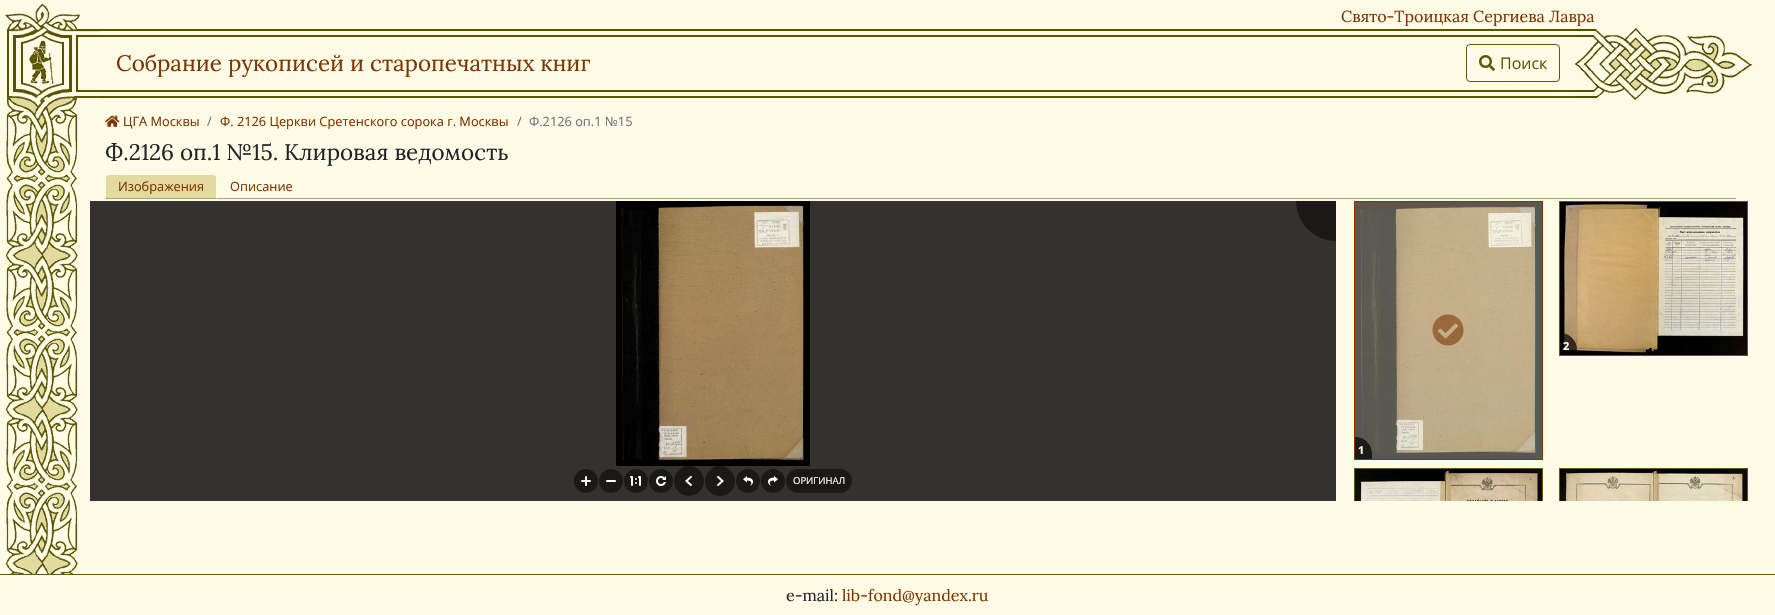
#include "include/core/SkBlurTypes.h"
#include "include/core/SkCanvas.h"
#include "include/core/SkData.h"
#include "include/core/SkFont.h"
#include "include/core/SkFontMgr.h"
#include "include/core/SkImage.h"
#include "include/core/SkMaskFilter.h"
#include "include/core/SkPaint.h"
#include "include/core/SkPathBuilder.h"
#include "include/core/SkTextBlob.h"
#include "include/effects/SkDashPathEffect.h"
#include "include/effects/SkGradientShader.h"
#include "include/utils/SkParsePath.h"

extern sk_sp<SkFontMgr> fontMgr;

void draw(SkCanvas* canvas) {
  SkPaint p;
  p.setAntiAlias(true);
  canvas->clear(SkColorSetRGB(253, 251, 230));
  canvas->drawImageRect(SkImages::DeferredFromEncodedData(SkData::MakeFromFileName("images/1.png")), SkRect::MakeLTRB(5, 112, 78, 574), SkSamplingOptions());
  canvas->drawImageRect(SkImages::DeferredFromEncodedData(SkData::MakeFromFileName("images/2.png")), SkRect::MakeLTRB(5, 0, 101, 96), SkSamplingOptions());
  canvas->drawImageRect(SkImages::DeferredFromEncodedData(SkData::MakeFromFileName("images/3.png")), SkRect::MakeLTRB(5, 96, 101, 112), SkSamplingOptions());
  canvas->drawImageRect(SkImages::DeferredFromEncodedData(SkData::MakeFromFileName("images/4.png")), SkRect::MakeLTRB(101, 29, 1575, 98), SkSamplingOptions());
  p.setStyle(SkPaint::kStroke_Style);
  p.setStrokeWidth(1);
  p.setColor(SkColorSetRGB(96, 87, 8));
  canvas->drawRoundRect(SkRect::MakeLTRB(1466.5f, 44.5f, 1559.5f, 81.5f), 3.5f, 3.5f, p);
  canvas->drawImageRect(SkImages::DeferredFromEncodedData(SkData::MakeFromFileName("images/5.png")), SkRect::MakeLTRB(1479, 55, 1495, 71), SkSamplingOptions());
  canvas->drawImageRect(SkImages::DeferredFromEncodedData(SkData::MakeFromFileName("images/6.png")), SkRect::MakeLTRB(1575, 28, 1753, 100), SkSamplingOptions());
  canvas->drawImageRect(SkImages::DeferredFromEncodedData(SkData::MakeFromFileName("images/7.png")), SkRect::MakeLTRB(105, 115, 120, 127), SkSamplingOptions());
  p.setStyle(SkPaint::kFill_Style);
  p.setColor(SkColorSetRGB(171, 165, 114));
  canvas->drawRect(SkRect::MakeLTRB(217, 198, 1736, 199), p);
  p.setColor(SkColorSetRGB(227, 218, 160));
  canvas->drawPath(SkPathBuilder().moveTo(109, 174).lineTo(213, 174).cubicTo(215, 174, 217, 176, 217, 178).lineTo(217, 199).lineTo(105, 199).lineTo(105, 178).cubicTo(105, 176, 107, 174, 109, 174).close().detach(), p);
  p.setColor(SkColorSetRGB(253, 251, 230));
  canvas->drawPath(SkPathBuilder().moveTo(109, 174).lineTo(106, 175).lineTo(107, 176).lineTo(109, 175).lineTo(213, 175).lineTo(215, 176).lineTo(216, 175).lineTo(213, 174).close().detach(), p);
  canvas->drawPath(SkPathBuilder().moveTo(217, 199).lineTo(217, 178).cubicTo(217, 177, 216.5f, 176, 216, 175).lineTo(215, 176).cubicTo(216, 176, 216, 177, 216, 178).lineTo(216, 198).close().detach(), p);
  p.setColor(SkColorSetRGB(171, 165, 114));
  canvas->drawPath(SkPathBuilder().moveTo(217, 199).lineTo(216, 198).lineTo(106, 198).lineTo(105, 199).close().detach(), p);
  p.setColor(SkColorSetRGB(253, 251, 230));
  canvas->drawPath(SkPathBuilder().moveTo(105, 199).lineTo(106, 198).lineTo(106, 178).cubicTo(106, 177, 106, 176, 107, 176).lineTo(106, 175).cubicTo(105.5f, 176, 105, 177, 105, 178).close().detach(), p);
  p.setStyle(SkPaint::kStroke_Style);
  p.setColor(SkColorSetRGB(96, 87, 8));
  canvas->drawRect(SkRect::MakeLTRB(1559.5f, 201.5f, 1747.5f, 355.5f), p);
  canvas->drawImageRect(SkImages::DeferredFromEncodedData(SkData::MakeFromFileName("images/8.png")), SkRect::MakeLTRB(1560, 202, 1747, 355), SkSamplingOptions());
  p.setStyle(SkPaint::kFill_Style);
  p.setColor(SkColorSetARGB(179, 0, 0, 0));
  canvas->drawPath(SkPathBuilder().moveTo(1560, 333).cubicTo(1569.5f, 333, 1577, 340.5f, 1577, 350).lineTo(1577, 355).lineTo(1560, 355).close().detach(), p);
  p.setStyle(SkPaint::kStroke_Style);
  p.setColor(SkColorSetRGB(127, 53, 0));
  canvas->drawRect(SkRect::MakeLTRB(1354.5f, 201.5f, 1542.5f, 459.5f), p);
  canvas->drawImageRect(SkImages::DeferredFromEncodedData(SkData::MakeFromFileName("images/10.png")), SkRect::MakeLTRB(1432, 314, 1464, 346), SkSamplingOptions());
  canvas->drawImageRect(SkImages::DeferredFromEncodedData(SkData::MakeFromFileName("images/9.png")), SkRect::MakeLTRB(1355, 202, 1542, 459), SkSamplingOptions());
  p.setStyle(SkPaint::kFill_Style);
  p.setColor(SkColorSetARGB(179, 0, 0, 0));
  canvas->drawPath(SkPathBuilder().moveTo(1355, 437).cubicTo(1364.5f, 437, 1372, 444.5f, 1372, 454).lineTo(1372, 459).lineTo(1355, 459).close().detach(), p);
  p.setColor(SkColorSetRGB(96, 87, 8));
  canvas->drawRect(SkRect::MakeLTRB(0, 574, 1775, 575), p);
  canvas->save();
  canvas->clipRect(SkRect::MakeLTRB(1351, 201, 1751, 501));
  p.setStyle(SkPaint::kStroke_Style);
  canvas->drawRect(SkRect::MakeLTRB(1354.5f, 468.5f, 1542.5f, 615.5f), p);
  canvas->restore();
  canvas->drawImageRect(SkImages::DeferredFromEncodedData(SkData::MakeFromFileName("images/11.png")), SkRect::MakeLTRB(1355, 469, 1542, 501), SkSamplingOptions());
  canvas->save();
  canvas->clipRect(SkRect::MakeLTRB(1351, 201, 1751, 501));
  canvas->drawRect(SkRect::MakeLTRB(1559.5f, 468.5f, 1747.5f, 613.5f), p);
  canvas->restore();
  canvas->drawImageRect(SkImages::DeferredFromEncodedData(SkData::MakeFromFileName("images/12.png")), SkRect::MakeLTRB(1560, 469, 1747, 501), SkSamplingOptions());
  p.setStyle(SkPaint::kFill_Style);
  p.setColor(SkColorSetRGB(51, 50, 46));
  canvas->drawRect(SkRect::MakeLTRB(90, 201, 1336, 501), p);
  canvas->drawImageRect(SkImages::DeferredFromEncodedData(SkData::MakeFromFileName("images/13.png")), SkRect::MakeLTRB(616, 201, 810, 466), SkSamplingOptions());
  p.setColor(SkColorSetRGB(26, 25, 23));
  canvas->drawPath(SkPathBuilder().moveTo(1296, 201).lineTo(1336, 201).lineTo(1336, 241).cubicTo(1314, 241, 1296, 223, 1296, 201).close().detach(), p);
  canvas->drawCircle(586, 481, 12, p);
  canvas->drawImageRect(SkImages::DeferredFromEncodedData(SkData::MakeFromFileName("images/14.png")), SkRect::MakeLTRB(581, 476, 591, 486), SkSamplingOptions());
  canvas->drawCircle(611, 481, 12, p);
  canvas->drawImageRect(SkImages::DeferredFromEncodedData(SkData::MakeFromFileName("images/15.png")), SkRect::MakeLTRB(606, 480, 616, 482), SkSamplingOptions());
  canvas->drawCircle(636, 481, 12, p);
  canvas->drawImageRect(SkImages::DeferredFromEncodedData(SkData::MakeFromFileName("images/16.png")), SkRect::MakeLTRB(630, 476, 641, 486), SkSamplingOptions());
  canvas->drawCircle(661, 481, 12, p);
  canvas->drawImageRect(SkImages::DeferredFromEncodedData(SkData::MakeFromFileName("images/17.png")), SkRect::MakeLTRB(656, 476, 666, 486), SkSamplingOptions());
  canvas->drawCircle(689, 481, 15, p);
  canvas->drawImageRect(SkImages::DeferredFromEncodedData(SkData::MakeFromFileName("images/18.png")), SkRect::MakeLTRB(685, 476, 692, 486), SkSamplingOptions());
  canvas->drawCircle(720, 481, 15, p);
  canvas->drawImageRect(SkImages::DeferredFromEncodedData(SkData::MakeFromFileName("images/19.png")), SkRect::MakeLTRB(717, 476, 724, 486), SkSamplingOptions());
  canvas->drawCircle(748, 481, 12, p);
  canvas->drawImageRect(SkImages::DeferredFromEncodedData(SkData::MakeFromFileName("images/20.png")), SkRect::MakeLTRB(743, 476, 753, 486), SkSamplingOptions());
  canvas->drawCircle(773, 481, 12, p);
  canvas->drawImageRect(SkImages::DeferredFromEncodedData(SkData::MakeFromFileName("images/21.png")), SkRect::MakeLTRB(768, 476, 778, 486), SkSamplingOptions());
  canvas->drawRoundRect(SkRect::MakeLTRB(786, 469, 852, 493), 12, 12, p);
  SkFont font1(fontMgr->matchFamilyStyle("Lora", SkFontStyle::Normal()), 16);
  font1.setSubpixel(true);
  p.setColor(SkColorSetRGB(127, 53, 0));
  canvas->drawString("Свято-Троицкая Сергиева Лавра", 1341, 22, font1, p);
  SkFont font2(fontMgr->matchFamilyStyle("Lora", SkFontStyle::Normal()), 22.4f);
  font2.setSubpixel(true);
  canvas->drawString("Собрание рукописей и старопечатных книг", 116, 71, font2, p);
  SkFont font3(fontMgr->matchFamilyStyle("Open Sans", SkFontStyle::Normal()), 16);
  font3.setSubpixel(true);
  p.setColor(SkColorSetRGB(96, 87, 8));
  canvas->drawString("Поиск", 1500, 69, font3, p);
  SkFont font4(fontMgr->matchFamilyStyle("Open Sans", SkFontStyle::Normal()), 12.8f);
  font4.setSubpixel(true);
  p.setColor(SkColorSetRGB(127, 53, 0));
  canvas->drawString("ЦГА Москвы", 123, 126, font4, p);
  p.setColor(SkColorSetRGB(108, 117, 125));
  canvas->drawString("/", 207, 126, font4, p);
  p.setColor(SkColorSetRGB(127, 53, 0));
  canvas->drawString("Ф. 2126 Церкви Сретенского сорока г. Москвы", 220, 126, font4, p);
  p.setColor(SkColorSetRGB(108, 117, 125));
  canvas->drawString("/", 517, 126, font4, p);
  canvas->drawString("Ф.2126 оп.1 №15", 529, 126, font4, p);
  p.setColor(SkColorSetRGB(33, 37, 41));
  canvas->drawString("Ф.2126 оп.1 №15. Клировая ведомость", 105, 160, font2, p);
  p.setColor(SkColorSetRGB(127, 53, 0));
  canvas->drawString("Изображения", 118, 191, font4, p);
  canvas->drawString("Описание", 230, 191, font4, p);
  SkFont font5(fontMgr->matchFamilyStyle("Open Sans", SkFontStyle::Bold()), 11);
  font5.setSubpixel(true);
  p.setColor(SkColorSetRGB(253, 251, 230));
  canvas->drawString("2", 1563, 350, font5, p);
  canvas->drawString("1", 1358, 454, font5, p);
  SkFont font6(fontMgr->matchFamilyStyle("Open Sans", SkFontStyle::Normal()), 9.5f);
  font6.setSubpixel(true);
  p.setColor(SK_ColorWHITE);
  canvas->drawString("ОРИГИНАЛ", 793, 484, font6, p);
  p.setColor(SkColorSetRGB(33, 37, 41));
  canvas->drawString("e-mail:", 786, 601, font1, p);
  p.setColor(SkColorSetRGB(127, 53, 0));
  canvas->drawString("lib-fond@yandex.ru", 842, 601, font1, p);
}
